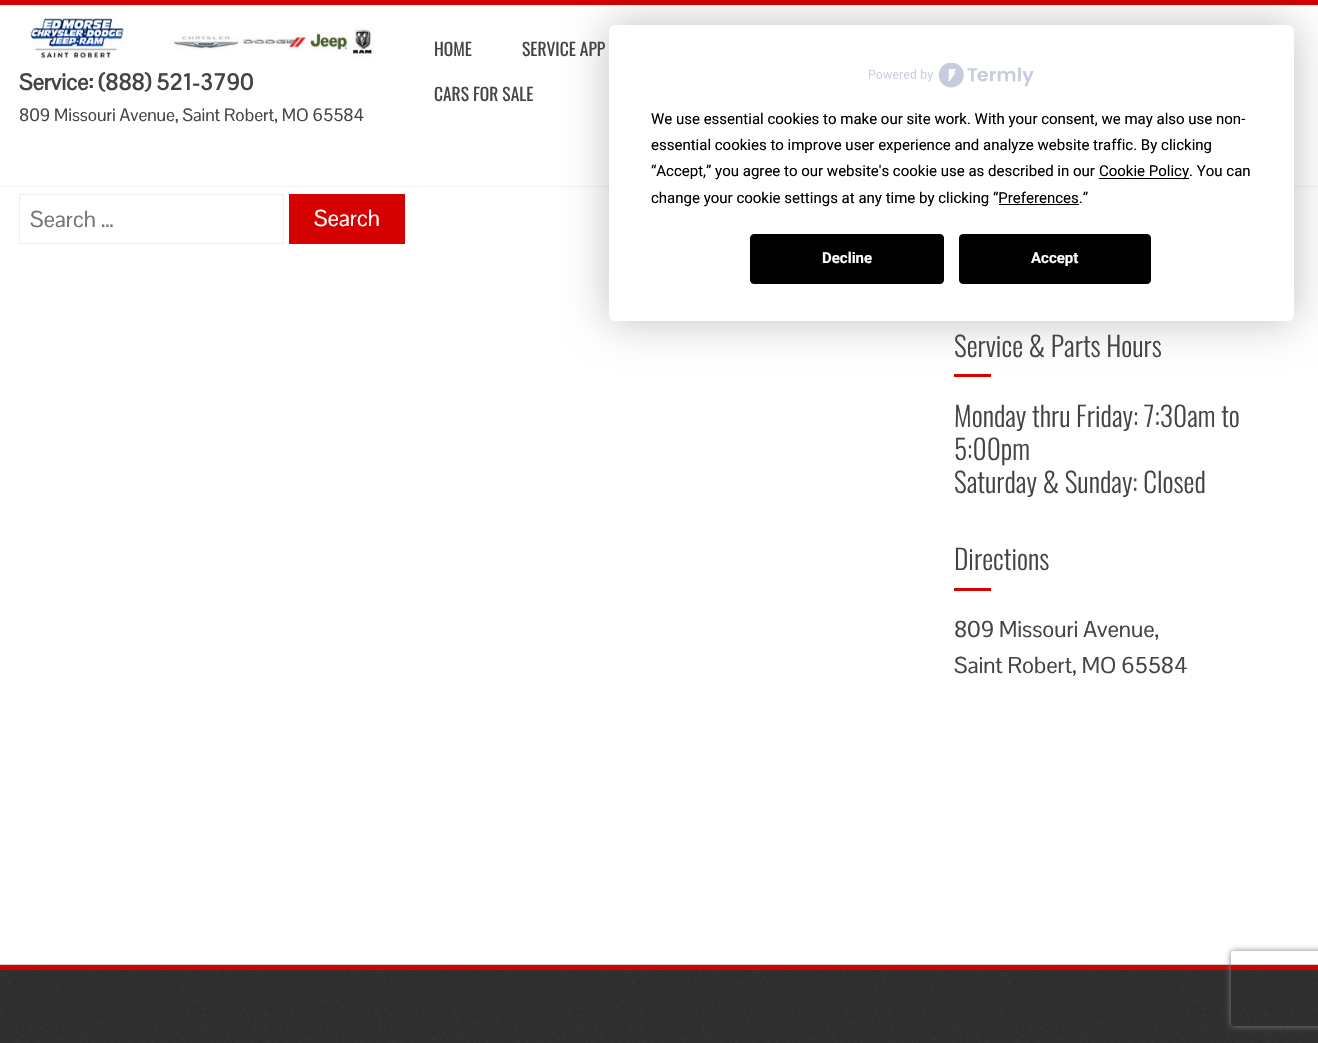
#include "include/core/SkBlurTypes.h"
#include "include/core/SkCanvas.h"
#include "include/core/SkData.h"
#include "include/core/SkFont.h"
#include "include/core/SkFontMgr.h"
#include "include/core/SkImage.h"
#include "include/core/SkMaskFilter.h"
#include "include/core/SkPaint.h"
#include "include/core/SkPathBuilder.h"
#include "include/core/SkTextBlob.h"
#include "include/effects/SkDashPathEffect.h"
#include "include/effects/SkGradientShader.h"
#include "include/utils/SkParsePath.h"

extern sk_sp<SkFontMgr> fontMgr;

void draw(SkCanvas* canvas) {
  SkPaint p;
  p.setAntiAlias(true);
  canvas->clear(SK_ColorWHITE);
  p.setColor(SkColorSetRGB(213, 0, 0));
  canvas->drawRect(SkRect::MakeLTRB(0, 0, 1318, 5), p);
  p.setColor(SkColorSetRGB(241, 241, 241));
  canvas->drawRect(SkRect::MakeLTRB(0, 186, 1318, 187), p);
  canvas->drawImageRect(SkImages::DeferredFromEncodedData(SkData::MakeFromFileName("images/1.png")), SkRect::MakeLTRB(25, 18, 375, 59), SkSamplingOptions());
  p.setStyle(SkPaint::kStroke_Style);
  p.setStrokeWidth(1);
  p.setColor(SkColorSetRGB(238, 238, 238));
  canvas->drawRect(SkRect::MakeLTRB(19.5f, 194.5f, 283.5f, 243.5f), p);
  p.setStyle(SkPaint::kFill_Style);
  p.setColor(SkColorSetRGB(213, 0, 0));
  canvas->drawRect(SkRect::MakeLTRB(289, 194, 405, 244), p);
  canvas->drawRect(SkRect::MakeLTRB(954, 374, 991, 377), p);
  canvas->drawRect(SkRect::MakeLTRB(954, 588, 991, 591), p);
  canvas->drawImageRect(SkImages::DeferredFromEncodedData(SkData::MakeFromFileName("images/2.png")), SkRect::MakeLTRB(0, 964, 1318, 1043), SkSamplingOptions());
  canvas->drawRect(SkRect::MakeLTRB(0, 965, 1318, 970), p);
  p.setColor(SkColorSetARGB(64, 0, 0, 0));
  p.setMaskFilter(SkMaskFilter::MakeBlur(kNormal_SkBlurStyle, 22));
  canvas->drawRoundRect(SkRect::MakeLTRB(609, 25, 1294, 321), 6, 6, p);
  p.setMaskFilter(nullptr);
  p.setColor(SK_ColorWHITE);
  canvas->drawRoundRect(SkRect::MakeLTRB(609, 25, 1294, 321), 6, 6, p);
  canvas->drawImageRect(SkImages::DeferredFromEncodedData(SkData::MakeFromFileName("images/3.png")), SkRect::MakeLTRB(869, 63, 1034, 88), SkSamplingOptions());
  p.setColor(SK_ColorBLACK);
  canvas->drawRect(SkRect::MakeLTRB(1099, 178, 1189, 179), p);
  canvas->drawRect(SkRect::MakeLTRB(999, 204, 1079, 205), p);
  canvas->drawRoundRect(SkRect::MakeLTRB(750.5f, 234.5f, 943.5f, 283.5f), 3.5f, 3.5f, p);
  p.setStyle(SkPaint::kStroke_Style);
  canvas->drawRoundRect(SkRect::MakeLTRB(750.5f, 234.5f, 943.5f, 283.5f), 3.5f, 3.5f, p);
  p.setStyle(SkPaint::kFill_Style);
  canvas->drawRoundRect(SkRect::MakeLTRB(959.5f, 234.5f, 1150.5f, 283.5f), 3.5f, 3.5f, p);
  p.setStyle(SkPaint::kStroke_Style);
  canvas->drawRoundRect(SkRect::MakeLTRB(959.5f, 234.5f, 1150.5f, 283.5f), 3.5f, 3.5f, p);
  canvas->save();
  canvas->clipPath(SkPathBuilder(SkPathFillType::kEvenOdd).moveTo(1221, 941).lineTo(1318, 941).lineTo(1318, 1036).lineTo(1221, 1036).close().moveTo(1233.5f, 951).lineTo(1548.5f, 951).cubicTo(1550, 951, 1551, 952, 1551, 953.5f).lineTo(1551, 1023.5f).cubicTo(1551, 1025, 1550, 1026, 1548.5f, 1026).lineTo(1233.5f, 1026).cubicTo(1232, 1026, 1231, 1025, 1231, 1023.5f).lineTo(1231, 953.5f).cubicTo(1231, 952, 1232, 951, 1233.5f, 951).close().detach(), true);
  p.setStyle(SkPaint::kFill_Style);
  p.setColor(SkColorSetRGB(128, 128, 128));
  p.setMaskFilter(SkMaskFilter::MakeBlur(kNormal_SkBlurStyle, 3));
  canvas->drawRoundRect(SkRect::MakeLTRB(1231, 951, 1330, 1026), 2.5f, 2.5f, p);
  p.setMaskFilter(nullptr);
  canvas->restore();
  SkFont font1(fontMgr->matchFamilyStyle("Pontano Sans", SkFontStyle::Bold()), 22.5f);
  font1.setSubpixel(true);
  p.setColor(SkColorSetRGB(68, 68, 68));
  canvas->drawString("Service: (888) 521-3790", 19, 90, font1, p);
  SkFont font2(fontMgr->matchFamilyStyle("Pontano Sans", SkFontStyle::Normal()), 17.5f);
  font2.setSubpixel(true);
  canvas->drawString("809 Missouri Avenue, Saint Robert, MO 65584", 19, 121, font2, p);
  SkFont font3(fontMgr->matchFamilyStyle("Oswald", SkFontStyle::Normal()), 17.5f);
  font3.setSubpixel(true);
  canvas->drawString("HOME", 434, 56, font3, p);
  canvas->drawString("SERVICE APP", 522, 56, font3, p);
  canvas->drawString("CARS FOR SALE", 434, 101, font3, p);
  SkFont font4(fontMgr->matchFamilyStyle("Pontano Sans", SkFontStyle::Normal()), 22.5f);
  font4.setSubpixel(true);
  p.setColor(SkColorSetRGB(117, 117, 117));
  canvas->drawString("Search …", 30, 227, font4, p);
  p.setColor(SK_ColorWHITE);
  canvas->drawString("Search", 314, 226, font4, p);
  SkFont font5(fontMgr->matchFamilyStyle("Oswald", SkFontStyle(300, SkFontStyle::kNormal_Width, SkFontStyle::kUpright_Slant)), 27.5f);
  font5.setSubpixel(true);
  p.setColor(SkColorSetRGB(68, 68, 68));
  canvas->drawString("Service & Parts Hours", 954, 357, font5, p);
  canvas->drawString("Monday thru Friday: 7:30am to", 954, 427, font5, p);
  canvas->drawString("5:00pm", 954, 460, font5, p);
  canvas->drawString("Saturday & Sunday: Closed", 954, 493, font5, p);
  canvas->drawString("Directions", 954, 570, font5, p);
  canvas->drawString("809 Missouri Avenue,", 954, 637, font4, p);
  canvas->drawString("Saint Robert, MO 65584", 954, 673, font4, p);
  SkFont font6(fontMgr->matchFamilyStyle("Roboto", SkFontStyle::Normal()), 15);
  font6.setSubpixel(true);
  p.setColor(SK_ColorBLACK);
  canvas->drawString("We use essential cookies to make our site work. With your consent, we may also use non-", 651, 124, font6, p);
  canvas->drawString("essential cookies to improve user experience and analyze website traffic. By clicking", 651, 150, font6, p);
  canvas->drawString("“Accept,” you agree to our website's cookie use as described in our", 651, 176, font6, p);
  canvas->drawString("Cookie Policy. You can", 1099, 176, font6, p);
  canvas->drawString("change your cookie settings at any time by clicking “Preferences.”", 651, 203, font6, p);
  SkFont font7(fontMgr->matchFamilyStyle("Roboto", SkFontStyle::Bold()), 15);
  font7.setSubpixel(true);
  p.setColor(SK_ColorWHITE);
  canvas->drawString("Decline", 822, 263, font7, p);
  canvas->drawString("Accept", 1031, 263, font7, p);
}
